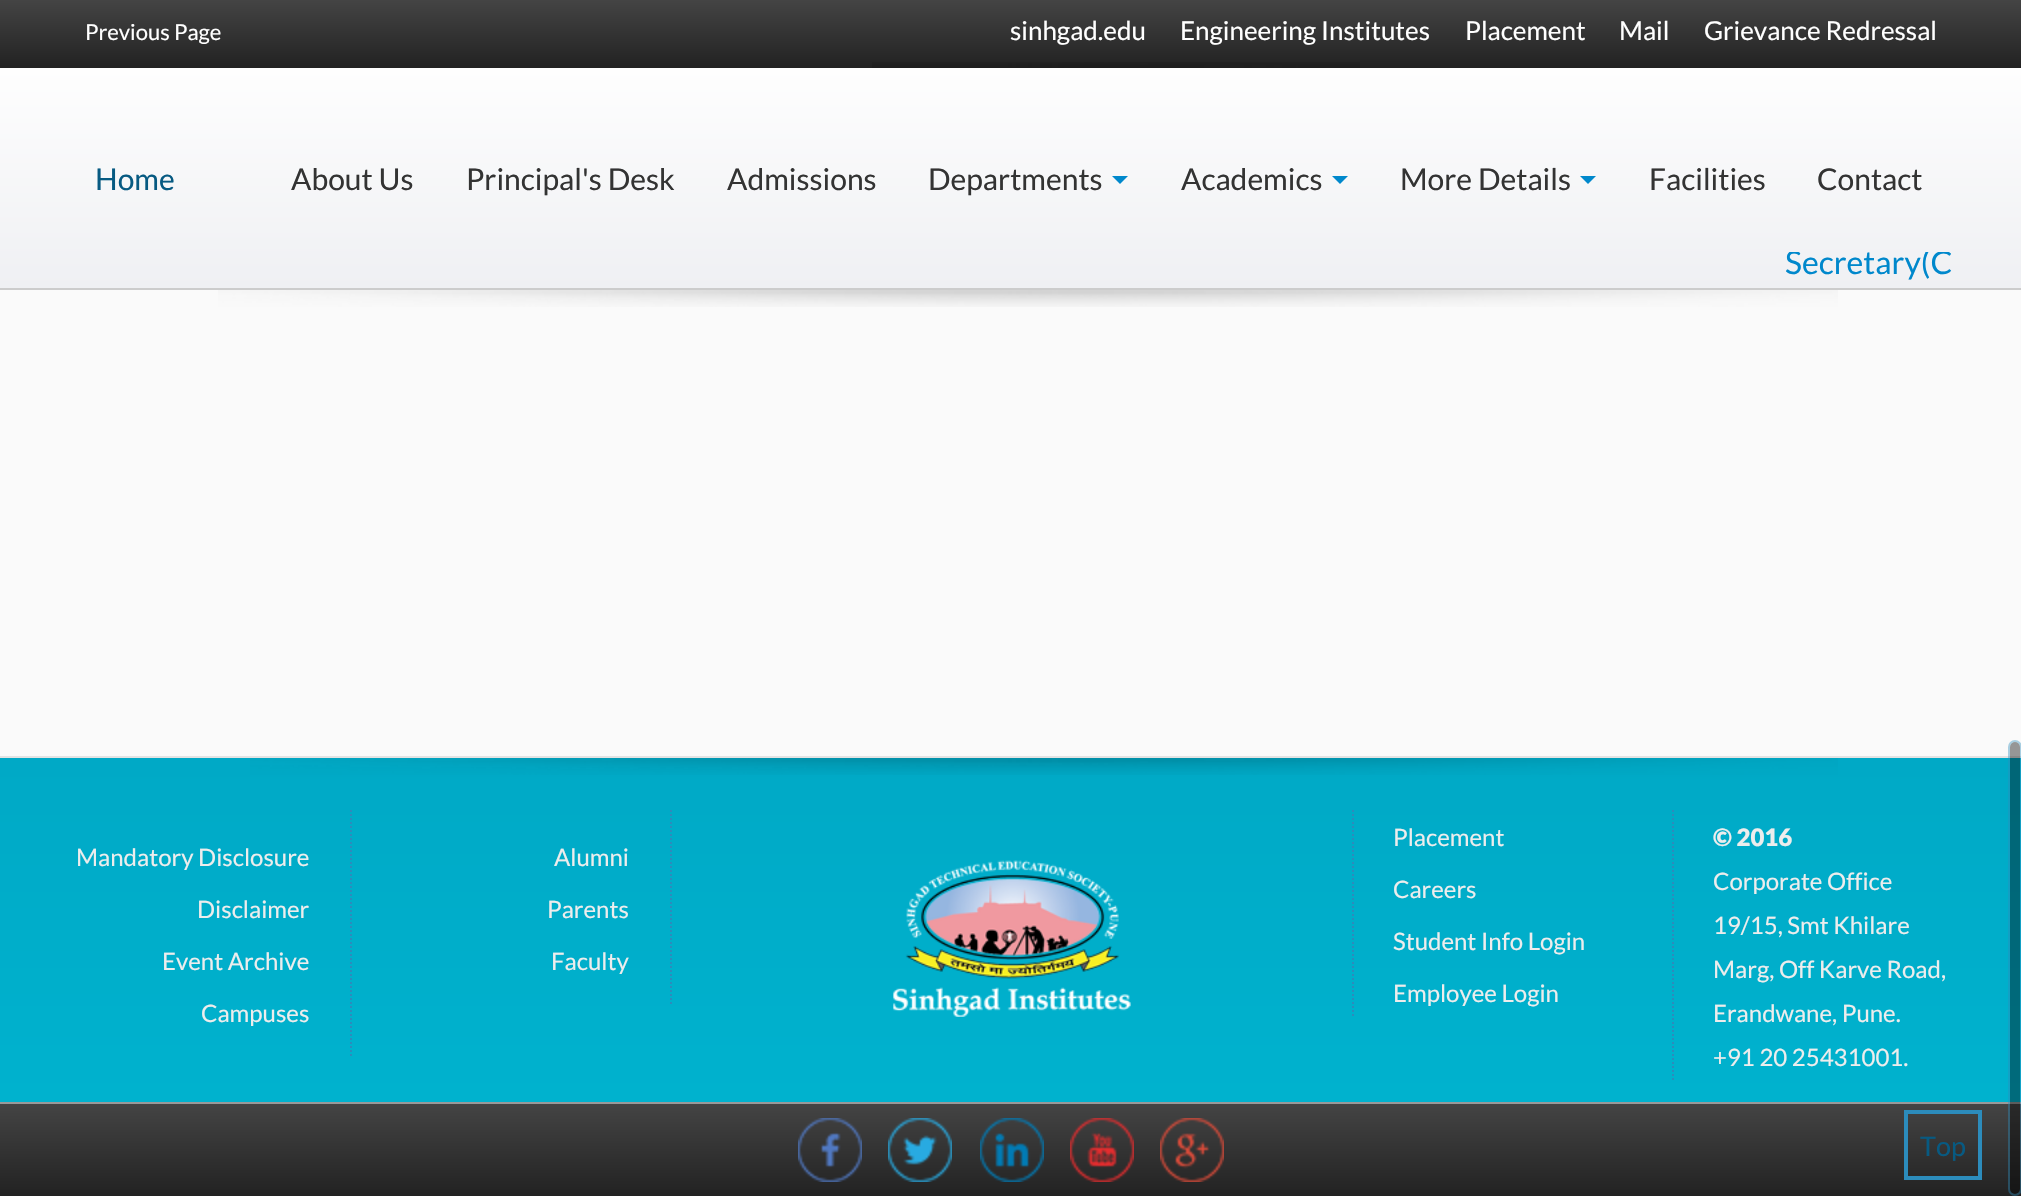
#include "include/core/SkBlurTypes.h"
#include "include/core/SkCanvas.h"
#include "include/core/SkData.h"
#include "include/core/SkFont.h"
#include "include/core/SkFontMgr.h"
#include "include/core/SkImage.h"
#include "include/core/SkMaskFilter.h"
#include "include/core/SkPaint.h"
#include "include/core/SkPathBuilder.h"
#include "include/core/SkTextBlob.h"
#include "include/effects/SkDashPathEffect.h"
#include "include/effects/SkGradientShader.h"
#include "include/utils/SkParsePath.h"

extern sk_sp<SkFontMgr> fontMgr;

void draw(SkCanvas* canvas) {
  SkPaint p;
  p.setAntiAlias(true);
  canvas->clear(SkColorSetRGB(250, 250, 250));
  {
    const SkColor colors[] = {SkColorSetRGB(68, 68, 68), SkColorSetRGB(34, 34, 34)};
    const float stops[] = {0, 1};
    const SkPoint ends[] = {{1011, 0}, {1011, 68}};
    p.setShader(SkGradientShader::MakeLinear(ends, colors, stops, 2, SkTileMode::kClamp));
    p.setAlpha(255);
  }
  canvas->drawRect(SkRect::MakeLTRB(0, 0, 2021, 68), p);
  canvas->drawImageRect(SkImages::DeferredFromEncodedData(SkData::MakeFromFileName("images/1.png")), SkRect::MakeLTRB(872, 62, 1360, 68), SkSamplingOptions());
  {
    const SkColor colors[] = {SkColorSetRGB(254, 254, 254), SkColorSetRGB(239, 240, 243)};
    const float stops[] = {0, 1};
    const SkPoint ends[] = {{1011, 68}, {1011, 288}};
    p.setShader(SkGradientShader::MakeLinear(ends, colors, stops, 2, SkTileMode::kClamp));
    p.setAlpha(255);
  }
  canvas->drawRect(SkRect::MakeLTRB(0, 68, 2021, 288), p);
  p.setShader(nullptr);
  p.setColor(SkColorSetRGB(204, 204, 204));
  canvas->drawRect(SkRect::MakeLTRB(0, 288, 2021, 290), p);
  p.setColor(SkColorSetRGB(0, 136, 204));
  canvas->drawPath(SkPathBuilder().moveTo(1112, 176).lineTo(1128, 176).lineTo(1120, 184).close().detach(), p);
  canvas->drawPath(SkPathBuilder().moveTo(1332, 176).lineTo(1348, 176).lineTo(1340, 184).close().detach(), p);
  canvas->drawPath(SkPathBuilder().moveTo(1580, 176).lineTo(1596, 176).lineTo(1588, 184).close().detach(), p);
  canvas->drawImageRect(SkImages::DeferredFromEncodedData(SkData::MakeFromFileName("images/2.png")), SkRect::MakeLTRB(218, 290, 1838, 307), SkSamplingOptions());
  {
    const SkColor colors[] = {SkColorSetRGB(0, 169, 198), SkColorSetRGB(0, 178, 206)};
    const float stops[] = {0, 1};
    const SkPoint ends[] = {{1011, 758}, {1011, 1102}};
    p.setShader(SkGradientShader::MakeLinear(ends, colors, stops, 2, SkTileMode::kClamp));
    p.setAlpha(255);
  }
  canvas->drawRect(SkRect::MakeLTRB(0, 758, 2021, 1102), p);
  p.setShader(nullptr);
  p.setColor(SkColorSetRGB(227, 227, 227));
  canvas->drawRect(SkRect::MakeLTRB(0, 756, 2021, 758), p);
  canvas->drawImageRect(SkImages::DeferredFromEncodedData(SkData::MakeFromFileName("images/3.png")), SkRect::MakeLTRB(250, 758, 1838, 775), SkSamplingOptions());
  p.setStyle(SkPaint::kStroke_Style);
  p.setStrokeWidth(2);
  p.setColor(SkColorSetRGB(44, 140, 188));
  p.setPathEffect(SkDashPathEffect::Make({{2, 2}}, 0));
  canvas->drawPath(SkPathBuilder().moveTo(351, 810).lineTo(351, 1058).detach(), p);
  p.setPathEffect(nullptr);
  p.setPathEffect(SkDashPathEffect::Make({{2, 2}}, 0));
  canvas->drawPath(SkPathBuilder().moveTo(671, 810).lineTo(671, 1006).detach(), p);
  p.setPathEffect(nullptr);
  canvas->drawImageRect(SkImages::DeferredFromEncodedData(SkData::MakeFromFileName("images/4.png")), SkRect::MakeLTRB(893, 860, 1131, 1017), SkSamplingOptions());
  p.setPathEffect(SkDashPathEffect::Make({{2, 2}}, 0));
  canvas->drawPath(SkPathBuilder().moveTo(1353, 810).lineTo(1353, 1018).detach(), p);
  p.setPathEffect(nullptr);
  p.setPathEffect(SkDashPathEffect::Make({{2, 2}}, 0));
  canvas->drawPath(SkPathBuilder().moveTo(1673, 810).lineTo(1673, 1082).detach(), p);
  p.setPathEffect(nullptr);
  p.setStyle(SkPaint::kFill_Style);
  {
    const SkColor colors[] = {SkColorSetRGB(68, 68, 68), SkColorSetRGB(34, 34, 34)};
    const float stops[] = {0, 1};
    const SkPoint ends[] = {{1011, 1104}, {1011, 1196}};
    p.setShader(SkGradientShader::MakeLinear(ends, colors, stops, 2, SkTileMode::kClamp));
    p.setAlpha(255);
  }
  canvas->drawRect(SkRect::MakeLTRB(0, 1104, 2021, 1196), p);
  p.setShader(nullptr);
  p.setColor(SkColorSetRGB(153, 153, 153));
  canvas->drawRect(SkRect::MakeLTRB(0, 1102, 2021, 1104), p);
  p.setColor(SkColorSetARGB(102, 0, 0, 0));
  canvas->drawRoundRect(SkRect::MakeLTRB(2010, 742, 2020, 1194), 5, 5, p);
  p.setStyle(SkPaint::kStroke_Style);
  p.setColor(SkColorSetARGB(102, 44, 140, 188));
  canvas->drawRoundRect(SkRect::MakeLTRB(2009, 741, 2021, 1195), 6, 6, p);
  canvas->drawImageRect(SkImages::DeferredFromEncodedData(SkData::MakeFromFileName("images/5.png")), SkRect::MakeLTRB(798, 1118, 862, 1182), SkSamplingOptions());
  canvas->drawImageRect(SkImages::DeferredFromEncodedData(SkData::MakeFromFileName("images/6.png")), SkRect::MakeLTRB(888, 1118, 952, 1182), SkSamplingOptions());
  canvas->drawImageRect(SkImages::DeferredFromEncodedData(SkData::MakeFromFileName("images/7.png")), SkRect::MakeLTRB(980, 1118, 1044, 1182), SkSamplingOptions());
  canvas->drawImageRect(SkImages::DeferredFromEncodedData(SkData::MakeFromFileName("images/8.png")), SkRect::MakeLTRB(1070, 1118, 1134, 1182), SkSamplingOptions());
  canvas->drawImageRect(SkImages::DeferredFromEncodedData(SkData::MakeFromFileName("images/9.png")), SkRect::MakeLTRB(1160, 1118, 1224, 1182), SkSamplingOptions());
  p.setStrokeWidth(4);
  p.setColor(SkColorSetRGB(44, 140, 188));
  canvas->drawRect(SkRect::MakeLTRB(1906, 1112, 1980, 1178), p);
  SkFont font1(fontMgr->matchFamilyStyle("Lato", SkFontStyle::Normal()), 22);
  font1.setSubpixel(true);
  p.setStyle(SkPaint::kFill_Style);
  p.setColor(SK_ColorWHITE);
  canvas->drawString("Previous Page", 85, 40, font1, p);
  SkFont font2(fontMgr->matchFamilyStyle("Lato", SkFontStyle::Normal()), 26);
  font2.setSubpixel(true);
  canvas->drawString("sinhgad.edu", 1010, 40, font2, p);
  canvas->drawString("Engineering Institutes", 1180, 40, font2, p);
  canvas->drawString("Placement", 1465, 40, font2, p);
  canvas->drawString("Mail", 1619, 40, font2, p);
  canvas->drawString("Grievance Redressal", 1704, 40, font2, p);
  SkFont font3(fontMgr->matchFamilyStyle("Lato", SkFontStyle::Normal()), 30);
  font3.setSubpixel(true);
  p.setColor(SkColorSetRGB(7, 90, 130));
  canvas->drawString("Home", 95, 190, font3, p);
  p.setColor(SkColorSetRGB(51, 51, 51));
  canvas->drawString("About Us", 291, 190, font3, p);
  canvas->drawString("Principal's Desk", 466, 190, font3, p);
  canvas->drawString("Admissions", 727, 190, font3, p);
  canvas->drawString("Departments", 928, 190, font3, p);
  canvas->drawString("Academics", 1181, 190, font3, p);
  canvas->drawString("More Details", 1400, 190, font3, p);
  canvas->drawString("Facilities", 1649, 190, font3, p);
  canvas->drawString("Contact", 1817, 190, font3, p);
  canvas->save();
  canvas->clipRect(SkRect::MakeLTRB(72, 252, 1952, 292));
  SkFont font4(fontMgr->matchFamilyStyle("Lato", SkFontStyle::Normal()), 32);
  font4.setSubpixel(true);
  p.setColor(SkColorSetRGB(0, 136, 204));
  canvas->drawString("Secretary(C", 1785, 274, font4, p);
  canvas->restore();
  SkFont font5(fontMgr->matchFamilyStyle("Lato", SkFontStyle::Normal()), 24);
  font5.setSubpixel(true);
  p.setColor(SkColorSetRGB(237, 237, 237));
  canvas->drawString("Mandatory Disclosure", 76, 866, font5, p);
  canvas->drawString("Disclaimer", 197, 918, font5, p);
  canvas->drawString("Event Archive", 162, 970, font5, p);
  canvas->drawString("Campuses", 201, 1022, font5, p);
  canvas->drawString("Alumni", 554, 866, font5, p);
  canvas->drawString("Parents", 547, 918, font5, p);
  canvas->drawString("Faculty", 551, 970, font5, p);
  canvas->drawString("Placement", 1393, 846, font5, p);
  canvas->drawString("Careers", 1393, 898, font5, p);
  canvas->drawString("Student Info Login", 1393, 950, font5, p);
  canvas->drawString("Employee Login", 1393, 1002, font5, p);
  SkFont font6(fontMgr->matchFamilyStyle("Lato", SkFontStyle(900, SkFontStyle::kNormal_Width, SkFontStyle::kUpright_Slant)), 24);
  font6.setSubpixel(true);
  canvas->drawString("© 2016", 1713, 846, font6, p);
  canvas->drawString("Corporate Office", 1713, 890, font5, p);
  canvas->drawString("19/15, Smt Khilare", 1713, 934, font5, p);
  canvas->drawString("Marg, Off Karve Road,", 1713, 978, font5, p);
  canvas->drawString("Erandwane, Pune.", 1713, 1022, font5, p);
  canvas->drawString("+91 20 25431001.", 1713, 1066, font5, p);
  SkFont font7(fontMgr->matchFamilyStyle("Lato", SkFontStyle::Normal()), 27);
  font7.setSubpixel(true);
  p.setColor(SkColorSetRGB(7, 90, 130));
  canvas->drawString("Top", 1920, 1156, font7, p);
}
